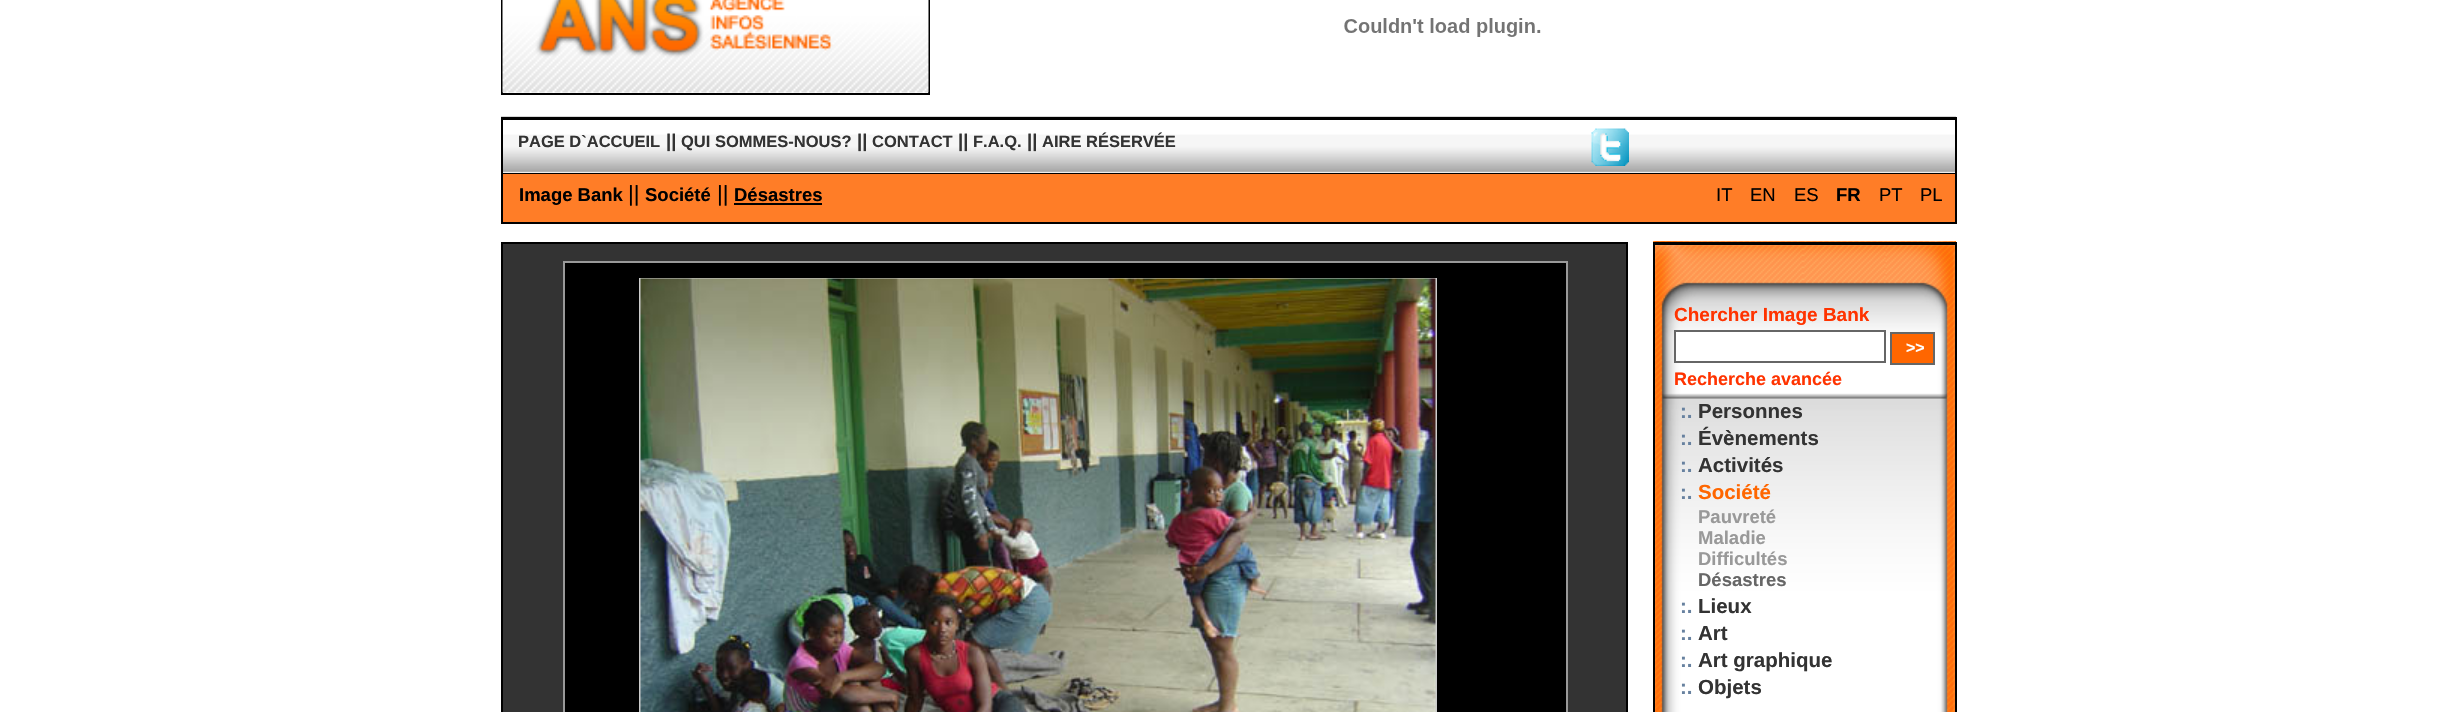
#include "include/core/SkBlurTypes.h"
#include "include/core/SkCanvas.h"
#include "include/core/SkData.h"
#include "include/core/SkFont.h"
#include "include/core/SkFontMgr.h"
#include "include/core/SkImage.h"
#include "include/core/SkMaskFilter.h"
#include "include/core/SkPaint.h"
#include "include/core/SkPathBuilder.h"
#include "include/core/SkTextBlob.h"
#include "include/effects/SkDashPathEffect.h"
#include "include/effects/SkGradientShader.h"
#include "include/utils/SkParsePath.h"

extern sk_sp<SkFontMgr> fontMgr;

void draw(SkCanvas* canvas) {
  SkPaint p;
  p.setAntiAlias(true);
  canvas->clear(SK_ColorWHITE);
  p.setStyle(SkPaint::kStroke_Style);
  p.setStrokeWidth(2);
  p.setColor(SK_ColorBLACK);
  canvas->drawRect(SkRect::MakeLTRB(502, -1, 929, 94), p);
  canvas->drawImageRect(SkImages::DeferredFromEncodedData(SkData::MakeFromFileName("images/1.png")), SkRect::MakeLTRB(502, 0, 929, 93), SkSamplingOptions());
  canvas->drawImageRect(SkImages::DeferredFromEncodedData(SkData::MakeFromFileName("images/2.png")), SkRect::MakeLTRB(1344, 18, 1541, 37), SkSamplingOptions());
  canvas->drawImageRect(SkImages::DeferredFromEncodedData(SkData::MakeFromFileName("images/3.png")), SkRect::MakeLTRB(501, 116, 1956, 173), SkSamplingOptions());
  p.setStyle(SkPaint::kFill_Style);
  canvas->drawRect(SkRect::MakeLTRB(501, 117, 1956, 120), p);
  canvas->drawRect(SkRect::MakeLTRB(1955, 117, 1957, 224), p);
  canvas->drawRect(SkRect::MakeLTRB(501, 173, 1956, 174), p);
  canvas->drawRect(SkRect::MakeLTRB(501, 117, 503, 174), p);
  canvas->drawImageRect(SkImages::DeferredFromEncodedData(SkData::MakeFromFileName("images/4.png")), SkRect::MakeLTRB(1591, 128, 1629, 166), SkSamplingOptions());
  p.setColor(SkColorSetRGB(255, 125, 39));
  canvas->drawRect(SkRect::MakeLTRB(503, 174, 1955, 222), p);
  p.setColor(SK_ColorBLACK);
  canvas->drawRect(SkRect::MakeLTRB(501, 222, 1956, 224), p);
  canvas->drawRect(SkRect::MakeLTRB(501, 174, 503, 224), p);
  canvas->drawRect(SkRect::MakeLTRB(734, 203, 822, 205), p);
  p.setColor(SkColorSetRGB(51, 51, 51));
  canvas->drawRect(SkRect::MakeLTRB(502, 243, 1627, 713), p);
  p.setStyle(SkPaint::kStroke_Style);
  p.setColor(SK_ColorBLACK);
  canvas->drawRect(SkRect::MakeLTRB(502, 243, 1627, 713), p);
  p.setStyle(SkPaint::kFill_Style);
  canvas->drawRect(SkRect::MakeLTRB(564, 262, 1567, 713), p);
  p.setStyle(SkPaint::kStroke_Style);
  p.setColor(SkColorSetRGB(153, 153, 153));
  canvas->drawRect(SkRect::MakeLTRB(564, 262, 1567, 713), p);
  p.setColor(SkColorSetRGB(204, 204, 204));
  canvas->drawRect(SkRect::MakeLTRB(640, 279, 1436, 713), p);
  canvas->drawImageRect(SkImages::DeferredFromEncodedData(SkData::MakeFromFileName("images/5.png")), SkRect::MakeLTRB(640, 278, 1436, 712), SkSamplingOptions());
  canvas->drawImageRect(SkImages::DeferredFromEncodedData(SkData::MakeFromFileName("images/6.png")), SkRect::MakeLTRB(1653, 241, 1956, 712), SkSamplingOptions());
  p.setStyle(SkPaint::kFill_Style);
  p.setColor(SK_ColorBLACK);
  canvas->drawRect(SkRect::MakeLTRB(1653, 242, 1956, 245), p);
  canvas->drawRect(SkRect::MakeLTRB(1955, 242, 1957, 712), p);
  canvas->drawRect(SkRect::MakeLTRB(1653, 242, 1655, 712), p);
  p.setColor(SK_ColorWHITE);
  canvas->drawRect(SkRect::MakeLTRB(1675, 331, 1885, 362), p);
  p.setStyle(SkPaint::kStroke_Style);
  p.setColor(SkColorSetRGB(102, 102, 102));
  canvas->drawRect(SkRect::MakeLTRB(1675, 331, 1885, 362), p);
  p.setStyle(SkPaint::kFill_Style);
  p.setColor(SkColorSetRGB(255, 102, 0));
  canvas->drawRect(SkRect::MakeLTRB(1891, 333, 1934, 364), p);
  p.setStyle(SkPaint::kStroke_Style);
  p.setColor(SkColorSetRGB(102, 102, 102));
  canvas->drawRect(SkRect::MakeLTRB(1891, 333, 1934, 364), p);
  SkFont font1(fontMgr->matchFamilyStyle("Liberation Sans", SkFontStyle::Bold()), 16.5f);
  font1.setSubpixel(true);
  p.setStyle(SkPaint::kFill_Style);
  p.setColor(SkColorSetRGB(51, 51, 51));
  canvas->drawString("PAGE D`ACCUEIL", 518, 147, font1, p);
  SkFont font2(fontMgr->matchFamilyStyle("Liberation Sans", SkFontStyle::Bold()), 18.5f);
  font2.setSubpixel(true);
  canvas->drawString("||", 666, 147, font2, p);
  canvas->drawString("QUI SOMMES-NOUS?", 681, 147, font1, p);
  canvas->drawString("||", 857, 147, font2, p);
  canvas->drawString("CONTACT", 872, 147, font1, p);
  canvas->drawString("||", 958, 147, font2, p);
  canvas->drawString("F.A.Q.", 973, 147, font1, p);
  canvas->drawString("||", 1027, 147, font2, p);
  canvas->drawString("AIRE RÉSERVÉE", 1042, 147, font1, p);
  p.setColor(SK_ColorBLACK);
  canvas->drawString("Image Bank", 519, 201, font2, p);
  SkFont font3(fontMgr->matchFamilyStyle("Liberation Sans", SkFontStyle::Normal()), 22);
  font3.setSubpixel(true);
  canvas->drawString("||", 628, 201, font3, p);
  canvas->drawString("Société", 645, 201, font2, p);
  canvas->drawString("||", 717, 201, font3, p);
  canvas->drawString("Désastres", 734, 201, font2, p);
  SkFont font4(fontMgr->matchFamilyStyle("Liberation Sans", SkFontStyle::Normal()), 18.5f);
  font4.setSubpixel(true);
  canvas->drawString("IT", 1716, 201, font4, p);
  canvas->drawString("EN", 1750, 201, font4, p);
  canvas->drawString("ES", 1794, 201, font4, p);
  canvas->drawString("FR", 1836, 201, font2, p);
  canvas->drawString("PT", 1879, 201, font4, p);
  canvas->drawString("PL", 1920, 201, font4, p);
  SkFont font5(fontMgr->matchFamilyStyle("Liberation Sans", SkFontStyle::Bold()), 19);
  font5.setSubpixel(true);
  p.setColor(SkColorSetRGB(255, 51, 0));
  canvas->drawString("Chercher Image Bank", 1674, 321, font5, p);
  SkFont font6(fontMgr->matchFamilyStyle("Liberation Sans", SkFontStyle::Bold()), 16);
  font6.setSubpixel(true);
  p.setColor(SK_ColorWHITE);
  canvas->drawString(">>", 1906, 353, font6, p);
  SkFont font7(fontMgr->matchFamilyStyle("Liberation Sans", SkFontStyle::Bold()), 18);
  font7.setSubpixel(true);
  p.setColor(SkColorSetRGB(255, 51, 0));
  canvas->drawString("Recherche avancée", 1674, 385, font7, p);
  SkFont font8(fontMgr->matchFamilyStyle("Liberation Sans", SkFontStyle::Bold()), 20.5f);
  font8.setSubpixel(true);
  p.setColor(SkColorSetRGB(103, 129, 159));
  canvas->drawString(":.", 1680, 418, font8, p);
  p.setColor(SkColorSetRGB(51, 51, 51));
  canvas->drawString("Personnes", 1698, 418, font8, p);
  p.setColor(SkColorSetRGB(103, 129, 159));
  canvas->drawString(":.", 1680, 445, font8, p);
  p.setColor(SkColorSetRGB(51, 51, 51));
  canvas->drawString("Évènements", 1698, 445, font8, p);
  p.setColor(SkColorSetRGB(103, 129, 159));
  canvas->drawString(":.", 1680, 472, font8, p);
  p.setColor(SkColorSetRGB(51, 51, 51));
  canvas->drawString("Activités", 1698, 472, font8, p);
  p.setColor(SkColorSetRGB(103, 129, 159));
  canvas->drawString(":.", 1680, 499, font8, p);
  p.setColor(SkColorSetRGB(255, 102, 0));
  canvas->drawString("Société", 1698, 499, font8, p);
  p.setColor(SkColorSetRGB(153, 153, 153));
  canvas->drawString("Pauvreté", 1698, 523, font2, p);
  canvas->drawString("Maladie", 1698, 544, font2, p);
  canvas->drawString("Difficultés", 1698, 565, font2, p);
  p.setColor(SkColorSetRGB(102, 102, 102));
  canvas->drawString("Désastres", 1698, 586, font2, p);
  p.setColor(SkColorSetRGB(103, 129, 159));
  canvas->drawString(":.", 1680, 613, font8, p);
  p.setColor(SkColorSetRGB(51, 51, 51));
  canvas->drawString("Lieux", 1698, 613, font8, p);
  p.setColor(SkColorSetRGB(103, 129, 159));
  canvas->drawString(":.", 1680, 640, font8, p);
  p.setColor(SkColorSetRGB(51, 51, 51));
  canvas->drawString("Art", 1698, 640, font8, p);
  p.setColor(SkColorSetRGB(103, 129, 159));
  canvas->drawString(":.", 1680, 667, font8, p);
  p.setColor(SkColorSetRGB(51, 51, 51));
  canvas->drawString("Art graphique", 1698, 667, font8, p);
  p.setColor(SkColorSetRGB(103, 129, 159));
  canvas->drawString(":.", 1680, 694, font8, p);
  p.setColor(SkColorSetRGB(51, 51, 51));
  canvas->drawString("Objets", 1698, 694, font8, p);
}
